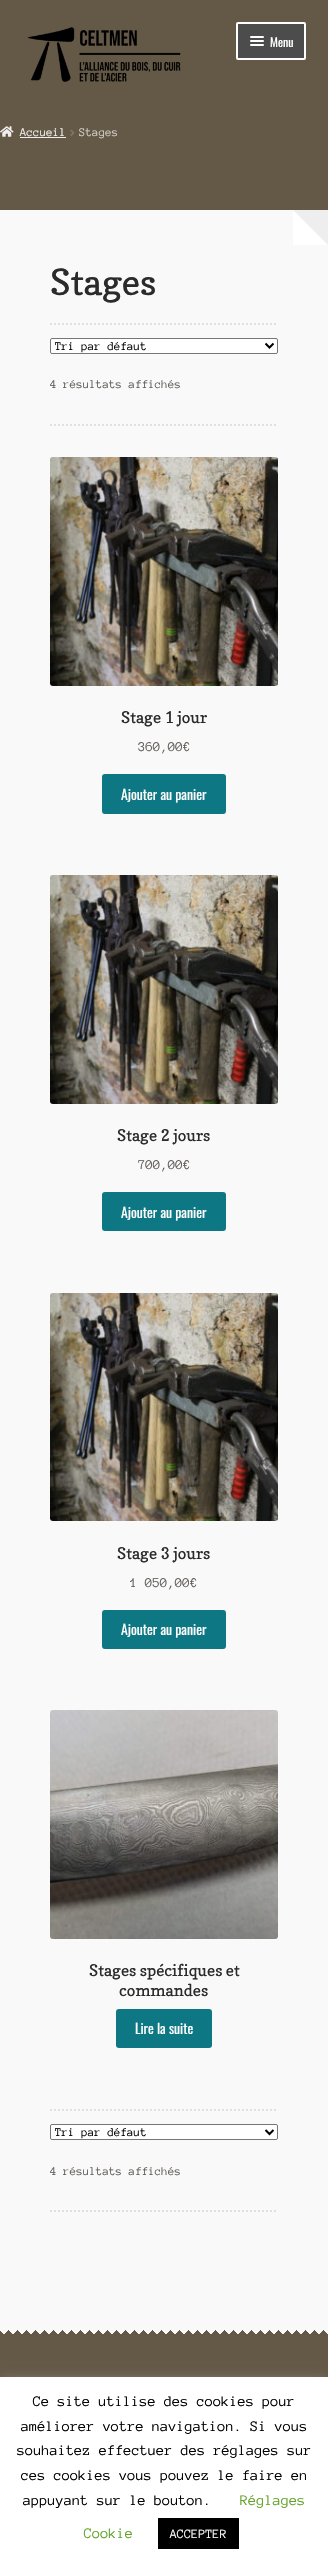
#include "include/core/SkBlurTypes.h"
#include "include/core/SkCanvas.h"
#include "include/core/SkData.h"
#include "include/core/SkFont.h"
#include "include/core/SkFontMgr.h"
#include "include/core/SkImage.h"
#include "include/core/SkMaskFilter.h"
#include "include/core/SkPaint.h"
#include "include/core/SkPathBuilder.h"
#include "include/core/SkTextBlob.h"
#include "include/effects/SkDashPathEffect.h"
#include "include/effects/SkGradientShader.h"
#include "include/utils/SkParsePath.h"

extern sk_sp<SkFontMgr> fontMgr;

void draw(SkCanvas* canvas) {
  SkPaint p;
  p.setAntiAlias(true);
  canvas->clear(SkColorSetRGB(100, 88, 70));
  canvas->drawImageRect(SkImages::DeferredFromEncodedData(SkData::MakeFromFileName("images/1.png")), SkRect::MakeLTRB(27, 27, 181, 82), SkSamplingOptions());
  p.setColor(SkColorSetRGB(76, 76, 76));
  canvas->drawRoundRect(SkRect::MakeLTRB(237, 23, 305, 59), 1, 1, p);
  p.setStyle(SkPaint::kStroke_Style);
  p.setStrokeWidth(2);
  p.setColor(SK_ColorWHITE);
  canvas->drawRoundRect(SkRect::MakeLTRB(237, 23, 305, 59), 1, 1, p);
  p.setStyle(SkPaint::kFill_Style);
  canvas->drawRoundRect(SkRect::MakeLTRB(250, 36, 264, 38), 1, 1, p);
  canvas->drawRoundRect(SkRect::MakeLTRB(250, 40, 264, 42), 1, 1, p);
  canvas->drawRoundRect(SkRect::MakeLTRB(250, 44, 264, 46), 1, 1, p);
  canvas->drawImageRect(SkImages::DeferredFromEncodedData(SkData::MakeFromFileName("images/2.png")), SkRect::MakeLTRB(0, 126, 14, 137), SkSamplingOptions());
  p.setColor(SkColorSetRGB(240, 238, 237));
  canvas->drawRect(SkRect::MakeLTRB(20, 137, 66, 138), p);
  canvas->drawImageRect(SkImages::DeferredFromEncodedData(SkData::MakeFromFileName("images/3.png")), SkRect::MakeLTRB(70, 129, 75, 136), SkSamplingOptions());
  p.setColor(SkColorSetRGB(249, 249, 249));
  canvas->drawRect(SkRect::MakeLTRB(0, 210, 328, 2329), p);
  p.setColor(SK_ColorWHITE);
  canvas->drawPath(SkPathBuilder().moveTo(328, 245).lineTo(293, 245).lineTo(293, 210).close().detach(), p);
  p.setColor(SkColorSetRGB(238, 238, 238));
  canvas->drawPath(SkPathBuilder().moveTo(328, 210).lineTo(328, 245).lineTo(293, 210).close().detach(), p);
  p.setStyle(SkPaint::kStroke_Style);
  p.setColor(SkColorSetRGB(224, 224, 224));
  p.setPathEffect(SkDashPathEffect::Make({{2, 2}}, 0));
  canvas->drawPath(SkPathBuilder().moveTo(50, 324).lineTo(278, 324).detach(), p);
  p.setPathEffect(nullptr);
  p.setPathEffect(SkDashPathEffect::Make({{2, 2}}, 0));
  canvas->drawPath(SkPathBuilder().moveTo(50, 425).lineTo(278, 425).detach(), p);
  p.setPathEffect(nullptr);
  p.setStyle(SkPaint::kFill_Style);
  p.setColor(SK_ColorWHITE);
  canvas->drawRoundRect(SkRect::MakeLTRB(50.5f, 338.5f, 277.5f, 353.5f), 1.5f, 1.5f, p);
  p.setStyle(SkPaint::kStroke_Style);
  p.setStrokeWidth(1);
  p.setColor(SkColorSetRGB(118, 118, 118));
  canvas->drawRoundRect(SkRect::MakeLTRB(50.5f, 338.5f, 277.5f, 353.5f), 1.5f, 1.5f, p);
  p.setStrokeWidth(2);
  p.setColor(SK_ColorBLACK);
  canvas->drawPath(SkPathBuilder().moveTo(265.5f, 343.5f).lineTo(269.5f, 347.5f).lineTo(273.5f, 343.5f).detach(), p);
  canvas->drawImageRect(SkImages::DeferredFromEncodedData(SkData::MakeFromFileName("images/4.png")), SkRect::MakeLTRB(50, 457, 278, 686), SkSamplingOptions());
  p.setStyle(SkPaint::kFill_Style);
  p.setColor(SkColorSetRGB(14, 119, 132));
  canvas->drawRoundRect(SkRect::MakeLTRB(102, 774, 226, 814), 3, 3, p);
  canvas->drawImageRect(SkImages::DeferredFromEncodedData(SkData::MakeFromFileName("images/4.png")), SkRect::MakeLTRB(50, 875, 278, 1104), SkSamplingOptions());
  canvas->drawRoundRect(SkRect::MakeLTRB(102, 1192, 226, 1231), 3, 3, p);
  canvas->drawImageRect(SkImages::DeferredFromEncodedData(SkData::MakeFromFileName("images/5.png")), SkRect::MakeLTRB(50, 1293, 278, 1521), SkSamplingOptions());
  canvas->drawRoundRect(SkRect::MakeLTRB(102, 1610, 226, 1649), 3, 3, p);
  canvas->drawImageRect(SkImages::DeferredFromEncodedData(SkData::MakeFromFileName("images/6.png")), SkRect::MakeLTRB(50, 1710, 278, 1939), SkSamplingOptions());
  canvas->drawRoundRect(SkRect::MakeLTRB(116, 2009, 212, 2048), 3, 3, p);
  p.setStyle(SkPaint::kStroke_Style);
  p.setColor(SkColorSetRGB(224, 224, 224));
  p.setPathEffect(SkDashPathEffect::Make({{2, 2}}, 0));
  canvas->drawPath(SkPathBuilder().moveTo(50, 2110).lineTo(278, 2110).detach(), p);
  p.setPathEffect(nullptr);
  p.setPathEffect(SkDashPathEffect::Make({{2, 2}}, 0));
  canvas->drawPath(SkPathBuilder().moveTo(50, 2211).lineTo(278, 2211).detach(), p);
  p.setPathEffect(nullptr);
  p.setStyle(SkPaint::kFill_Style);
  p.setColor(SK_ColorWHITE);
  canvas->drawRoundRect(SkRect::MakeLTRB(50.5f, 2124.5f, 277.5f, 2139.5f), 1.5f, 1.5f, p);
  p.setStyle(SkPaint::kStroke_Style);
  p.setStrokeWidth(1);
  p.setColor(SkColorSetRGB(118, 118, 118));
  canvas->drawRoundRect(SkRect::MakeLTRB(50.5f, 2124.5f, 277.5f, 2139.5f), 1.5f, 1.5f, p);
  p.setStrokeWidth(2);
  p.setColor(SK_ColorBLACK);
  canvas->drawPath(SkPathBuilder().moveTo(265.5f, 2130).lineTo(269.5f, 2134).lineTo(273.5f, 2130).detach(), p);
  canvas->drawImageRect(SkImages::DeferredFromEncodedData(SkData::MakeFromFileName("images/7.png")), SkRect::MakeLTRB(0, 2329, 328, 2334), SkSamplingOptions());
  canvas->drawImageRect(SkImages::DeferredFromEncodedData(SkData::MakeFromFileName("images/8.png")), SkRect::MakeLTRB(4, 2329, 323, 2334), SkSamplingOptions());
  p.setStyle(SkPaint::kFill_Style);
  p.setColor(SkColorSetARGB(77, 172, 171, 171));
  p.setMaskFilter(SkMaskFilter::MakeBlur(kNormal_SkBlurStyle, 5));
  canvas->drawRect(SkRect::MakeLTRB(0, 2376, 328, 2565), p);
  p.setMaskFilter(nullptr);
  p.setColor(SK_ColorWHITE);
  canvas->drawRect(SkRect::MakeLTRB(0, 2377, 328, 2566), p);
  p.setColor(SK_ColorBLACK);
  canvas->drawRect(SkRect::MakeLTRB(158, 2518, 239, 2549), p);
  SkFont font1(fontMgr->matchFamilyStyle("Oswald", SkFontStyle::Normal()), 12);
  font1.setSubpixel(true);
  p.setColor(SK_ColorWHITE);
  canvas->drawString("Menu", 270, 47, font1, p);
  SkFont font2(fontMgr->matchFamilyStyle("Anonymous Pro", SkFontStyle::Normal()), 12);
  font2.setSubpixel(true);
  p.setColor(SkColorSetRGB(240, 238, 237));
  canvas->drawString("Accueil", 20, 136, font2, p);
  p.setColor(SkColorSetRGB(209, 205, 200));
  canvas->drawString("Stages", 79, 136, font2, p);
  SkFont font3(fontMgr->matchFamilyStyle("Copse", SkFontStyle::Normal()), 36);
  font3.setSubpixel(true);
  p.setColor(SkColorSetRGB(43, 43, 43));
  canvas->drawString("Stages", 50, 295, font3, p);
  canvas->save();
  canvas->clipRect(SkRect::MakeLTRB(55, 339, 261, 353));
  p.setColor(SK_ColorBLACK);
  canvas->drawString("Tri par défaut", 55, 350, font2, p);
  canvas->restore();
  p.setColor(SkColorSetRGB(97, 93, 89));
  canvas->drawString("4 résultats affichés", 50, 388, font2, p);
  SkFont font4(fontMgr->matchFamilyStyle("Copse", SkFontStyle::Normal()), 16);
  font4.setSubpixel(true);
  p.setColor(SkColorSetRGB(43, 43, 43));
  canvas->drawString("Stage 1 jour", 121, 723, font4, p);
  SkFont font5(fontMgr->matchFamilyStyle("Anonymous Pro", SkFontStyle::Normal()), 13.75f);
  font5.setSubpixel(true);
  p.setColor(SkColorSetRGB(97, 93, 89));
  canvas->drawString("360,00€", 138, 751, font5, p);
  SkFont font6(fontMgr->matchFamilyStyle("Oswald", SkFontStyle::Normal()), 13.75f);
  font6.setSubpixel(true);
  p.setColor(SK_ColorWHITE);
  canvas->drawString("Ajouter au panier", 121, 800, font6, p);
  p.setColor(SkColorSetRGB(43, 43, 43));
  canvas->drawString("Stage 2 jours", 117, 1141, font4, p);
  p.setColor(SkColorSetRGB(97, 93, 89));
  canvas->drawString("700,00€", 138, 1169, font5, p);
  p.setColor(SK_ColorWHITE);
  canvas->drawString("Ajouter au panier", 121, 1218, font6, p);
  p.setColor(SkColorSetRGB(43, 43, 43));
  canvas->drawString("Stage 3 jours", 117, 1559, font4, p);
  p.setColor(SkColorSetRGB(97, 93, 89));
  canvas->drawString("1 050,00€", 130, 1587, font5, p);
  p.setColor(SK_ColorWHITE);
  canvas->drawString("Ajouter au panier", 121, 1635, font6, p);
  p.setColor(SkColorSetRGB(43, 43, 43));
  canvas->drawString("Stages spécifiques et", 89, 1976, font4, p);
  canvas->drawString("commandes", 119, 1996, font4, p);
  p.setColor(SK_ColorWHITE);
  canvas->drawString("Lire la suite", 135, 2034, font6, p);
  canvas->save();
  canvas->clipRect(SkRect::MakeLTRB(55, 2125, 261, 2139));
  p.setColor(SK_ColorBLACK);
  canvas->drawString("Tri par défaut", 55, 2136, font2, p);
  canvas->restore();
  p.setColor(SkColorSetRGB(97, 93, 89));
  canvas->drawString("4 résultats affichés", 50, 2175, font2, p);
  SkFont font7(fontMgr->matchFamilyStyle("Anonymous Pro", SkFontStyle::Normal()), 15);
  font7.setSubpixel(true);
  p.setColor(SK_ColorBLACK);
  canvas->drawString("Ce site utilise des cookies pour", 33, 2406, font7, p);
  canvas->drawString("améliorer votre navigation. Si vous", 21, 2431, font7, p);
  canvas->drawString("souhaitez effectuer des réglages sur", 17, 2455, font7, p);
  canvas->drawString("ces cookies vous pouvez le faire en", 21, 2480, font7, p);
  canvas->drawString("appuyant sur le bouton.", 23, 2505, font7, p);
  p.setColor(SkColorSetRGB(98, 163, 41));
  canvas->drawString("Réglages", 240, 2505, font7, p);
  canvas->drawString("Cookie", 84, 2538, font7, p);
  SkFont font8(fontMgr->matchFamilyStyle("Anonymous Pro", SkFontStyle::Normal()), 13);
  font8.setSubpixel(true);
  p.setColor(SK_ColorWHITE);
  canvas->drawString("ACCEPTER", 170, 2538, font8, p);
}
